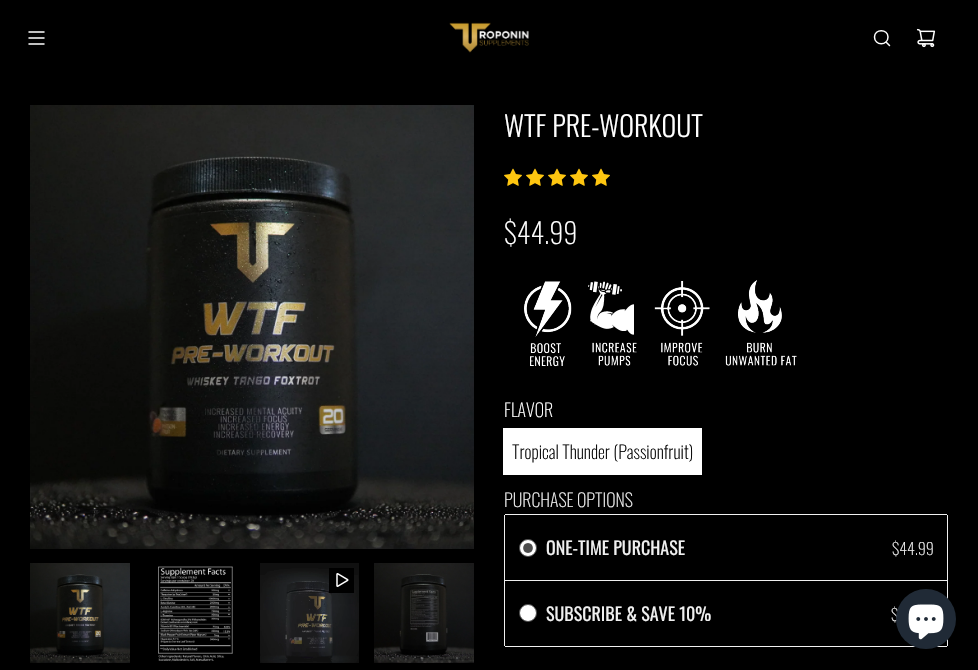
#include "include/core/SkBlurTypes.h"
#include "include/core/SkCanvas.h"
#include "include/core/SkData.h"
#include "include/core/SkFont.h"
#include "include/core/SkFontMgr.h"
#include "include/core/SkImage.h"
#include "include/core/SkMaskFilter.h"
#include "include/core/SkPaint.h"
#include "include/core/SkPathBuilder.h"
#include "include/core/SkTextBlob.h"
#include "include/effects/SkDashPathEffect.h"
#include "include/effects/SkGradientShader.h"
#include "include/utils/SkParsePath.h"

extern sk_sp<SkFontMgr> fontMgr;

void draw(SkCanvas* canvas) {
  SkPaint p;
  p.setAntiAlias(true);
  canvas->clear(SK_ColorBLACK);
  p.setStyle(SkPaint::kStroke_Style);
  p.setStrokeWidth(1.5f);
  p.setStrokeCap(SkPaint::kRound_Cap);
  p.setStrokeJoin(SkPaint::kRound_Join);
  p.setColor(SK_ColorWHITE);
  canvas->drawPath(SkPathBuilder().moveTo(29, 32).lineTo(44, 32).moveTo(29, 38).lineTo(44, 38).moveTo(29, 44).lineTo(44, 44).detach(), p);
  canvas->drawImageRect(SkImages::DeferredFromEncodedData(SkData::MakeFromFileName("images/1.png")), SkRect::MakeLTRB(449, 22, 529, 53), SkSamplingOptions());
  canvas->drawPath(SkPathBuilder().moveTo(886, 42).lineTo(889.5f, 45.5f).moveTo(874.5f, 37).cubicTo(874.5f, 46, 888, 46, 888, 37).cubicTo(888, 28.5f, 874.5f, 28.5f, 874.5f, 37).close().detach(), p);
  canvas->drawImageRect(SkImages::DeferredFromEncodedData(SkData::MakeFromFileName("images/2.png")), SkRect::MakeLTRB(916, 28, 936, 48), SkSamplingOptions());
  canvas->drawImageRect(SkImages::DeferredFromEncodedData(SkData::MakeFromFileName("images/3.png")), SkRect::MakeLTRB(30, 105, 474, 549), SkSamplingOptions());
  canvas->drawImageRect(SkImages::DeferredFromEncodedData(SkData::MakeFromFileName("images/4.png")), SkRect::MakeLTRB(30, 563, 130, 663), SkSamplingOptions());
  canvas->drawImageRect(SkImages::DeferredFromEncodedData(SkData::MakeFromFileName("images/5.png")), SkRect::MakeLTRB(158, 566, 233, 662), SkSamplingOptions());
  canvas->drawImageRect(SkImages::DeferredFromEncodedData(SkData::MakeFromFileName("images/6.png")), SkRect::MakeLTRB(260, 563, 359, 663), SkSamplingOptions());
  p.setStyle(SkPaint::kFill_Style);
  p.setColor(SK_ColorBLACK);
  canvas->drawRect(SkRect::MakeLTRB(329, 568, 354, 593), p);
  canvas->drawImageRect(SkImages::DeferredFromEncodedData(SkData::MakeFromFileName("images/7.png")), SkRect::MakeLTRB(336, 573, 349, 587), SkSamplingOptions());
  canvas->drawImageRect(SkImages::DeferredFromEncodedData(SkData::MakeFromFileName("images/8.png")), SkRect::MakeLTRB(374, 563, 474, 663), SkSamplingOptions());
  canvas->drawImageRect(SkImages::DeferredFromEncodedData(SkData::MakeFromFileName("images/9.png")), SkRect::MakeLTRB(504, 168, 522, 186), SkSamplingOptions());
  canvas->drawImageRect(SkImages::DeferredFromEncodedData(SkData::MakeFromFileName("images/9.png")), SkRect::MakeLTRB(526, 168, 544, 186), SkSamplingOptions());
  canvas->drawImageRect(SkImages::DeferredFromEncodedData(SkData::MakeFromFileName("images/9.png")), SkRect::MakeLTRB(548, 168, 566, 186), SkSamplingOptions());
  canvas->drawImageRect(SkImages::DeferredFromEncodedData(SkData::MakeFromFileName("images/9.png")), SkRect::MakeLTRB(570, 168, 588, 186), SkSamplingOptions());
  canvas->drawImageRect(SkImages::DeferredFromEncodedData(SkData::MakeFromFileName("images/9.png")), SkRect::MakeLTRB(592, 168, 610, 186), SkSamplingOptions());
  canvas->drawImageRect(SkImages::DeferredFromEncodedData(SkData::MakeFromFileName("images/10.png")), SkRect::MakeLTRB(524, 280, 797, 367), SkSamplingOptions());
  p.setColor(SK_ColorWHITE);
  canvas->drawRect(SkRect::MakeLTRB(504, 429, 701, 474), p);
  p.setStyle(SkPaint::kStroke_Style);
  p.setStrokeWidth(1);
  p.setStrokeCap(SkPaint::kButt_Cap);
  p.setStrokeJoin(SkPaint::kMiter_Join);
  canvas->drawRect(SkRect::MakeLTRB(503.5f, 428.5f, 701.5f, 474.5f), p);
  p.setStyle(SkPaint::kFill_Style);
  p.setColor(SkColorSetRGB(240, 240, 240));
  canvas->drawRect(SkRect::MakeLTRB(505, 514, 947, 515), p);
  canvas->drawRect(SkRect::MakeLTRB(947, 515, 948, 646), p);
  canvas->drawRect(SkRect::MakeLTRB(504, 515, 505, 646), p);
  canvas->drawRect(SkRect::MakeLTRB(505, 580, 947, 581), p);
  p.setColor(SK_ColorWHITE);
  canvas->drawCircle(528, 548, 8.5f, p);
  p.setStyle(SkPaint::kStroke_Style);
  p.setColor(SkColorSetRGB(77, 77, 77));
  canvas->drawCircle(528, 548, 8.5f, p);
  p.setStyle(SkPaint::kFill_Style);
  canvas->drawPath(SkPathBuilder().moveTo(528, 543).cubicTo(521.5f, 543, 521.5f, 553, 528, 553).cubicTo(534.5f, 553, 534.5f, 543, 528, 543).close().detach(), p);
  p.setColor(SkColorSetRGB(240, 240, 240));
  canvas->drawRect(SkRect::MakeLTRB(505, 646, 947, 647), p);
  p.setColor(SK_ColorWHITE);
  canvas->drawCircle(528, 613, 8.5f, p);
  p.setStyle(SkPaint::kStroke_Style);
  p.setColor(SkColorSetRGB(77, 77, 77));
  canvas->drawCircle(528, 613, 8.5f, p);
  SkFont font1(fontMgr->matchFamilyStyle("Oswald", SkFontStyle(300, SkFontStyle::kNormal_Width, SkFontStyle::kUpright_Slant)), 28);
  font1.setSubpixel(true);
  p.setStyle(SkPaint::kFill_Style);
  p.setColor(SK_ColorWHITE);
  canvas->drawString("WTF PRE-WORKOUT", 504, 137, font1, p);
  SkFont font2(fontMgr->matchFamilyStyle("Oswald", SkFontStyle(200, SkFontStyle::kNormal_Width, SkFontStyle::kUpright_Slant)), 28);
  font2.setSubpixel(true);
  canvas->drawString("$44.99", 504, 244, font2, p);
  SkFont font3(fontMgr->matchFamilyStyle("Oswald", SkFontStyle(200, SkFontStyle::kNormal_Width, SkFontStyle::kUpright_Slant)), 18);
  font3.setSubpixel(true);
  canvas->drawString("FLAVOR", 504, 417, font3, p);
  p.setColor(SK_ColorBLACK);
  canvas->drawString("Tropical Thunder (Passionfruit)", 512, 459, font3, p);
  p.setColor(SkColorSetRGB(240, 240, 240));
  canvas->drawString("PURCHASE OPTIONS", 504, 507, font3, p);
  SkFont font4(fontMgr->matchFamilyStyle("Oswald", SkFontStyle::Normal()), 18);
  font4.setSubpixel(true);
  canvas->drawString("ONE-TIME PURCHASE", 546, 555, font4, p);
  SkFont font5(fontMgr->matchFamilyStyle("Oswald", SkFontStyle(200, SkFontStyle::kNormal_Width, SkFontStyle::kUpright_Slant)), 16);
  font5.setSubpixel(true);
  canvas->drawString("$44.99", 892, 555, font5, p);
  canvas->drawString("SUBSCRIBE & SAVE 10%", 546, 621, font4, p);
  canvas->drawString("$", 891, 621, font5, p);
  p.setColor(SkColorSetRGB(32, 42, 54));
  canvas->drawCircle(926, 619, 30, p);
  canvas->drawImageRect(SkImages::DeferredFromEncodedData(SkData::MakeFromFileName("images/11.png")), SkRect::MakeLTRB(908, 604, 944, 640), SkSamplingOptions());
}
